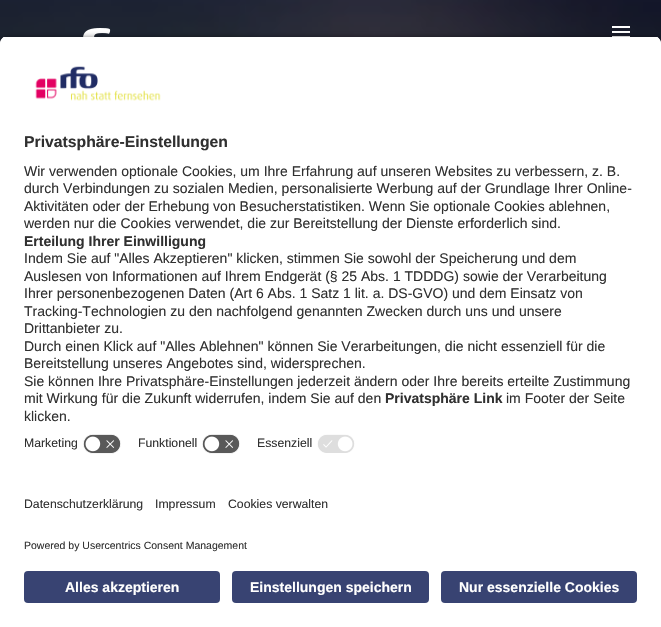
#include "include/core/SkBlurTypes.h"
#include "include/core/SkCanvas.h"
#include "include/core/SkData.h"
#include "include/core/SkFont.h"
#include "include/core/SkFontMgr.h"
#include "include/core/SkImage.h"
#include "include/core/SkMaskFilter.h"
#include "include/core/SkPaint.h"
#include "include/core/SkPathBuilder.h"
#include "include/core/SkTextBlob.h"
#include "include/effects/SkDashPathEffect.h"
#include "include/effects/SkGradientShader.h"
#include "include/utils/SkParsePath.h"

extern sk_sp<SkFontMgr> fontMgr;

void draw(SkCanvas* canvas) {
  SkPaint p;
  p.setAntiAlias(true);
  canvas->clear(SK_ColorWHITE);
  canvas->drawImageRect(SkImages::DeferredFromEncodedData(SkData::MakeFromFileName("images/1.png")), SkRect::MakeLTRB(0, 0, 661, 44), SkSamplingOptions());
  p.setColor(SkColorSetARGB(64, 0, 0, 0));
  canvas->drawRect(SkRect::MakeLTRB(0, 0, 661, 44), p);
  canvas->drawImageRect(SkImages::DeferredFromEncodedData(SkData::MakeFromFileName("images/2.png")), SkRect::MakeLTRB(83, 28, 111, 37), SkSamplingOptions());
  canvas->drawImageRect(SkImages::DeferredFromEncodedData(SkData::MakeFromFileName("images/3.png")), SkRect::MakeLTRB(612, 26, 630, 37), SkSamplingOptions());
  p.setColor(SkColorSetARGB(204, 0, 0, 0));
  p.setMaskFilter(SkMaskFilter::MakeBlur(kNormal_SkBlurStyle, 3.5f));
  canvas->drawRoundRect(SkRect::MakeLTRB(0, 39, 661, 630), 8, 8, p);
  p.setMaskFilter(nullptr);
  canvas->save();
  canvas->clipPath(SkPathBuilder().moveTo(8, 36).lineTo(653, 36).cubicTo(657.5f, 36, 661, 39.5f, 661, 44).lineTo(661, 469).lineTo(0, 469).lineTo(0, 44).cubicTo(0, 39.5f, 3.5f, 36, 8, 36).close().detach(), true);
  p.setColor(SK_ColorWHITE);
  canvas->drawRect(SkRect::MakeLTRB(0, 37, 661, 469), p);
  canvas->drawRect(SkRect::MakeLTRB(0, 37, 661, 429), p);
  canvas->restore();
  canvas->drawImageRect(SkImages::DeferredFromEncodedData(SkData::MakeFromFileName("images/4.png")), SkRect::MakeLTRB(35, 66, 161, 101), SkSamplingOptions());
  canvas->drawImageRect(SkImages::DeferredFromEncodedData(SkData::MakeFromFileName("images/5.png")), SkRect::MakeLTRB(83, 434, 121, 454), SkSamplingOptions());
  canvas->drawImageRect(SkImages::DeferredFromEncodedData(SkData::MakeFromFileName("images/5.png")), SkRect::MakeLTRB(202, 434, 240, 454), SkSamplingOptions());
  canvas->drawImageRect(SkImages::DeferredFromEncodedData(SkData::MakeFromFileName("images/6.png")), SkRect::MakeLTRB(317, 434, 355, 453), SkSamplingOptions());
  canvas->drawRect(SkRect::MakeLTRB(0, 469, 661, 627), p);
  p.setColor(SkColorSetRGB(56, 67, 114));
  canvas->drawRoundRect(SkRect::MakeLTRB(24, 571, 220, 603), 4, 4, p);
  canvas->drawRoundRect(SkRect::MakeLTRB(232, 571, 429, 603), 4, 4, p);
  canvas->drawRoundRect(SkRect::MakeLTRB(441, 571, 637, 603), 4, 4, p);
  SkFont font1(fontMgr->matchFamilyStyle("Liberation Sans", SkFontStyle::Bold()), 15.75f);
  font1.setSubpixel(true);
  p.setColor(SkColorSetRGB(48, 48, 48));
  canvas->drawString("Privatsphäre-Einstellungen", 24, 147, font1, p);
  SkFont font2(fontMgr->matchFamilyStyle("Liberation Sans", SkFontStyle::Normal()), 14);
  font2.setSubpixel(true);
  canvas->drawString("Wir verwenden optionale Cookies, um Ihre Erfahrung auf unseren Websites zu verbessern, z. B.", 24, 176, font2, p);
  canvas->drawString("durch Verbindungen zu sozialen Medien, personalisierte Werbung auf der Grundlage Ihrer Online-", 24, 193, font2, p);
  canvas->drawString("Aktivitäten oder der Erhebung von Besucherstatistiken. Wenn Sie optionale Cookies ablehnen,", 24, 211, font2, p);
  canvas->drawString("werden nur die Cookies verwendet, die zur Bereitstellung der Dienste erforderlich sind.", 24, 228, font2, p);
  SkFont font3(fontMgr->matchFamilyStyle("Liberation Sans", SkFontStyle::Bold()), 14);
  font3.setSubpixel(true);
  canvas->drawString("Erteilung Ihrer Einwilligung", 24, 246, font3, p);
  canvas->drawString("Indem Sie auf \"Alles Akzeptieren\" klicken, stimmen Sie sowohl der Speicherung und dem", 24, 263, font2, p);
  canvas->drawString("Auslesen von Informationen auf Ihrem Endgerät (§ 25 Abs. 1 TDDDG) sowie der Verarbeitung", 24, 281, font2, p);
  canvas->drawString("Ihrer personenbezogenen Daten (Art 6 Abs. 1 Satz 1 lit. a. DS-GVO) und dem Einsatz von", 24, 298, font2, p);
  canvas->drawString("Tracking-Technologien zu den nachfolgend genannten Zwecken durch uns und unsere", 24, 316, font2, p);
  canvas->drawString("Drittanbieter zu.", 24, 333, font2, p);
  canvas->drawString("Durch einen Klick auf \"Alles Ablehnen\" können Sie Verarbeitungen, die nicht essenziell für die", 24, 351, font2, p);
  canvas->drawString("Bereitstellung unseres Angebotes sind, widersprechen.", 24, 368, font2, p);
  canvas->drawString("Sie können Ihre Privatsphäre-Einstellungen jederzeit ändern oder Ihre bereits erteilte Zustimmung", 24, 386, font2, p);
  canvas->drawString("mit Wirkung für die Zukunft widerrufen, indem Sie auf den", 24, 403, font2, p);
  canvas->drawString("Privatsphäre Link", 385, 403, font3, p);
  canvas->drawString("im Footer der Seite", 506, 403, font2, p);
  canvas->drawString("klicken.", 24, 421, font2, p);
  SkFont font4(fontMgr->matchFamilyStyle("Liberation Sans", SkFontStyle::Normal()), 12.25f);
  font4.setSubpixel(true);
  canvas->drawString("Marketing", 24, 447, font4, p);
  canvas->drawString("Funktionell", 138, 447, font4, p);
  canvas->drawString("Essenziell", 257, 447, font4, p);
  canvas->drawString("Datenschutzerklärung", 24, 508, font4, p);
  canvas->drawString("Impressum", 155, 508, font4, p);
  canvas->drawString("Cookies verwalten", 228, 508, font4, p);
  SkFont font5(fontMgr->matchFamilyStyle("Liberation Sans", SkFontStyle::Normal()), 10.5f);
  font5.setSubpixel(true);
  canvas->drawString("Powered by Usercentrics Consent Management", 24, 549, font5, p);
  p.setColor(SK_ColorWHITE);
  canvas->drawString("Alles akzeptieren", 65, 592, font3, p);
  canvas->drawString("Einstellungen speichern", 250, 592, font3, p);
  canvas->drawString("Nur essenzielle Cookies", 459, 592, font3, p);
}
